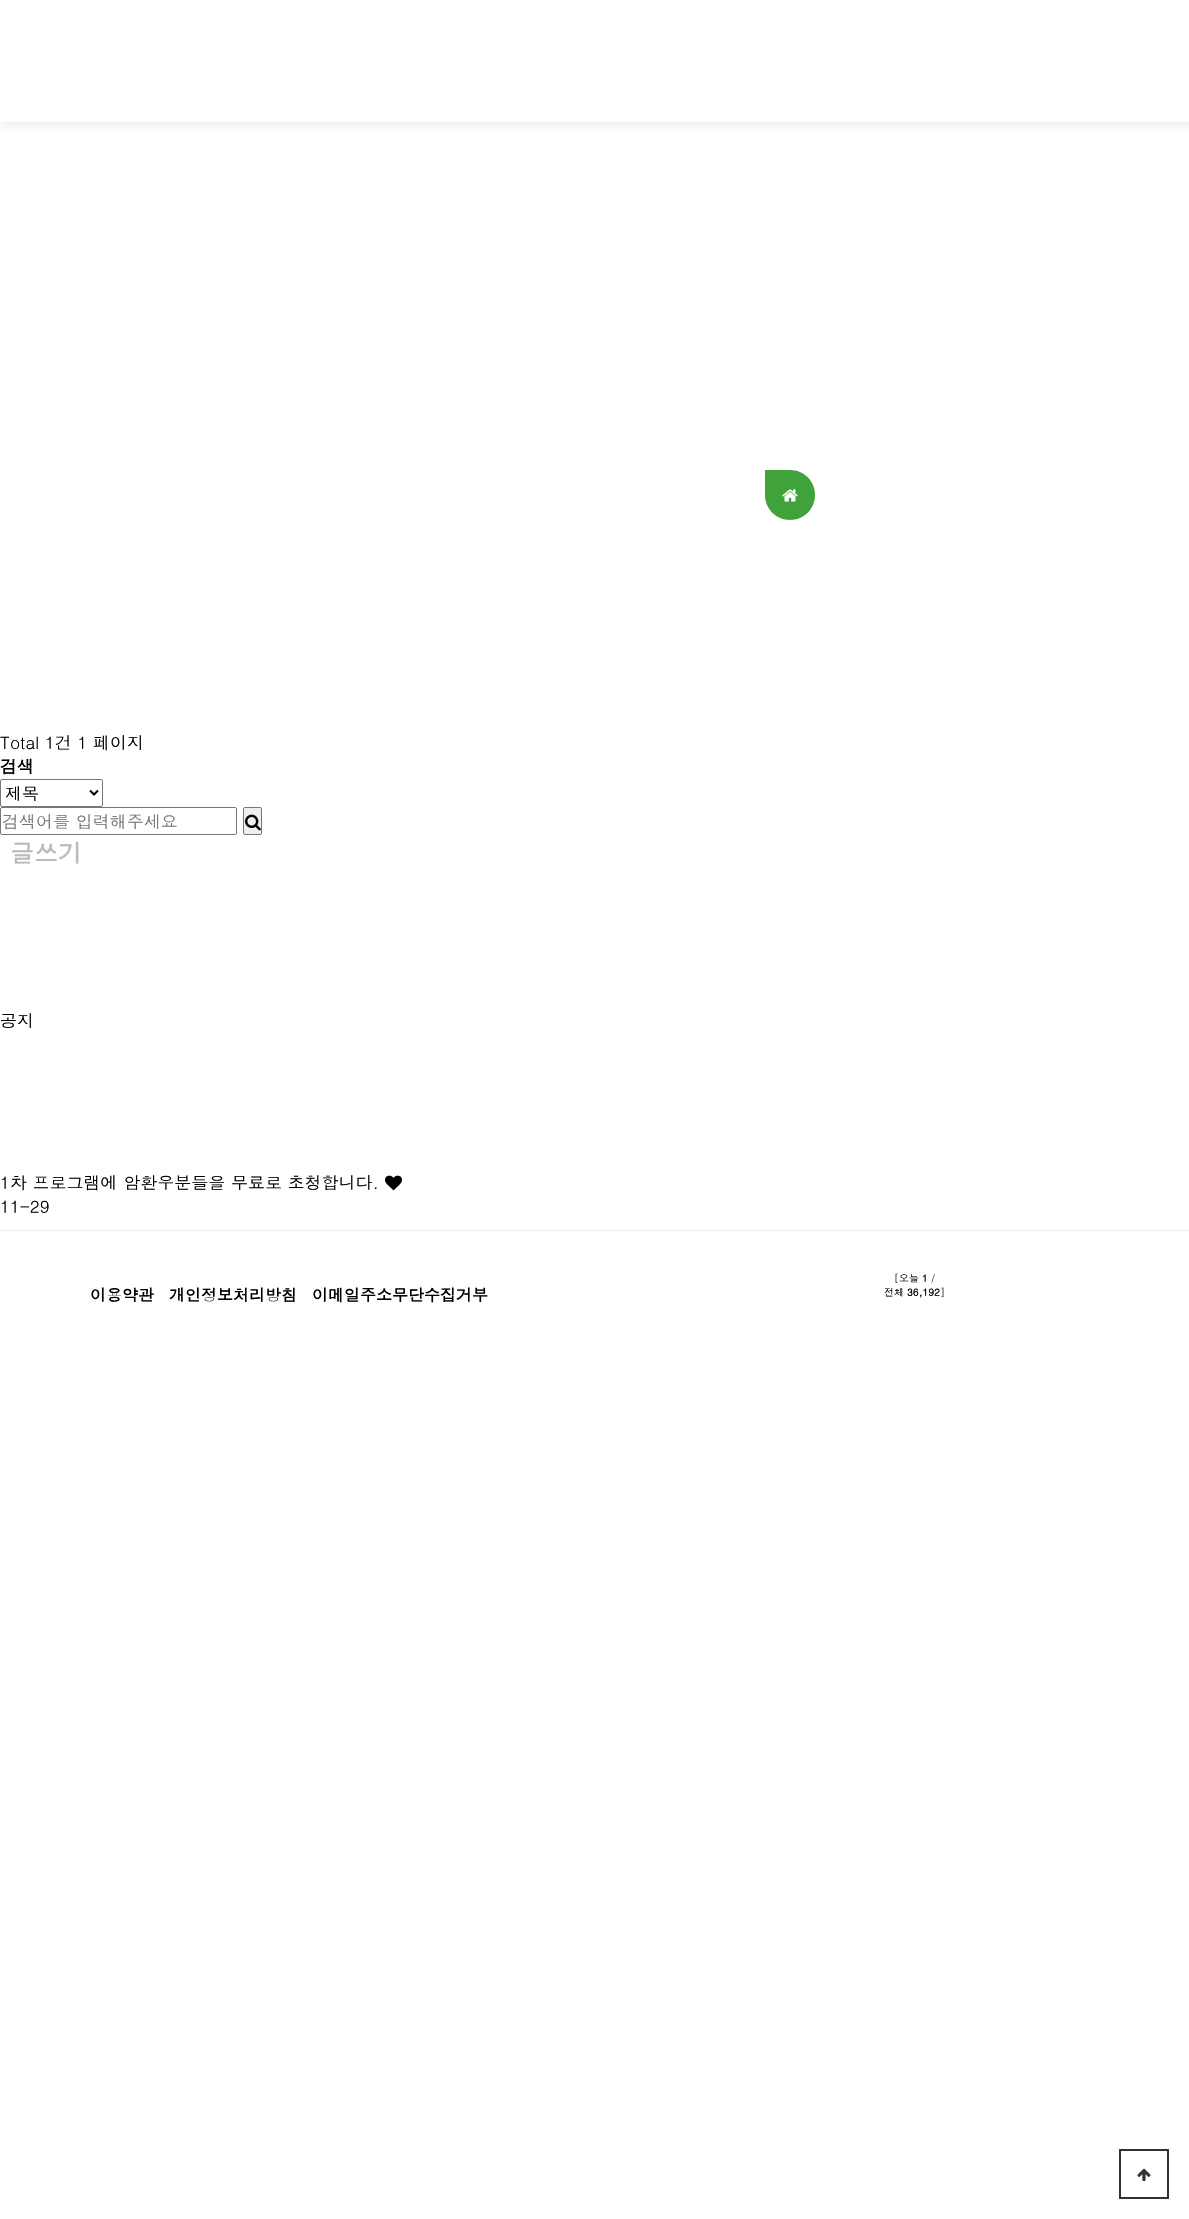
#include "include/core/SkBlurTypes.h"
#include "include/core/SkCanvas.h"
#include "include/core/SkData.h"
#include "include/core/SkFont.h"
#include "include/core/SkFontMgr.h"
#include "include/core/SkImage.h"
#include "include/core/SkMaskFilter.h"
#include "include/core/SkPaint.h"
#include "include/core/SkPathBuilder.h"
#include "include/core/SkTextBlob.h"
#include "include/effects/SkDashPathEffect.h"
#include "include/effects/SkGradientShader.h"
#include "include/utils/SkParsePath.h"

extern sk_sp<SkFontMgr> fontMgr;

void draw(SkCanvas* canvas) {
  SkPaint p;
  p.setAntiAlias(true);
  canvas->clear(SK_ColorWHITE);
  canvas->save();
  canvas->clipRect(SkRect::MakeLTRB(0, 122, 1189, 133));
  p.setColor(SkColorSetARGB(38, 138, 155, 165));
  p.setMaskFilter(SkMaskFilter::MakeBlur(kNormal_SkBlurStyle, 5));
  canvas->drawRect(SkRect::MakeLTRB(0, 5, 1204, 127), p);
  p.setMaskFilter(nullptr);
  canvas->restore();
  p.setColor(SkColorSetRGB(64, 162, 59));
  canvas->drawPath(SkPathBuilder().moveTo(765, 470).lineTo(790, 470).cubicTo(804, 470, 815, 481, 815, 495).cubicTo(815, 509, 804, 520, 790, 520).cubicTo(776, 520, 765, 509, 765, 495).close().detach(), p);
  canvas->drawImageRect(SkImages::DeferredFromEncodedData(SkData::MakeFromFileName("images/1.png")), SkRect::MakeLTRB(782, 489, 798, 502), SkSamplingOptions());
  p.setStyle(SkPaint::kStroke_Style);
  p.setStrokeWidth(1);
  p.setColor(SkColorSetRGB(118, 118, 118));
  canvas->drawRoundRect(SkRect::MakeLTRB(0.5f, 779.5f, 102.5f, 806.5f), 1.5f, 1.5f, p);
  p.setStrokeWidth(2);
  p.setColor(SK_ColorBLACK);
  canvas->drawPath(SkPathBuilder().moveTo(90, 790.5f).lineTo(94, 794.5f).lineTo(98, 790.5f).detach(), p);
  p.setStrokeWidth(1);
  p.setColor(SkColorSetRGB(118, 118, 118));
  canvas->drawRoundRect(SkRect::MakeLTRB(0.5f, 807.5f, 236.5f, 834.5f), 1.5f, 1.5f, p);
  p.setStyle(SkPaint::kFill_Style);
  p.setColor(SkColorSetRGB(239, 239, 239));
  canvas->drawRoundRect(SkRect::MakeLTRB(243.5f, 807.5f, 261.5f, 834.5f), 1.5f, 1.5f, p);
  p.setStyle(SkPaint::kStroke_Style);
  p.setColor(SkColorSetRGB(118, 118, 118));
  canvas->drawRoundRect(SkRect::MakeLTRB(243.5f, 807.5f, 261.5f, 834.5f), 1.5f, 1.5f, p);
  canvas->drawImageRect(SkImages::DeferredFromEncodedData(SkData::MakeFromFileName("images/2.png")), SkRect::MakeLTRB(245, 814, 261, 831), SkSamplingOptions());
  canvas->drawImageRect(SkImages::DeferredFromEncodedData(SkData::MakeFromFileName("images/3.png")), SkRect::MakeLTRB(385, 1175, 402, 1191), SkSamplingOptions());
  p.setStyle(SkPaint::kFill_Style);
  p.setColor(SkColorSetRGB(238, 238, 238));
  canvas->drawRect(SkRect::MakeLTRB(0, 1230, 1189, 1231), p);
  p.setStyle(SkPaint::kStroke_Style);
  p.setStrokeWidth(2);
  p.setColor(SkColorSetRGB(51, 51, 51));
  canvas->drawRect(SkRect::MakeLTRB(1120, 2150, 1168, 2198), p);
  canvas->drawImageRect(SkImages::DeferredFromEncodedData(SkData::MakeFromFileName("images/4.png")), SkRect::MakeLTRB(1137, 2168, 1151, 2182), SkSamplingOptions());
  SkFont font1(fontMgr->matchFamilyStyle("Dotum", SkFontStyle::Normal()), 17);
  font1.setSubpixel(true);
  p.setStyle(SkPaint::kFill_Style);
  p.setColor(SK_ColorBLACK);
  canvas->drawString("Total 1건 1 페이지", 0, 749, font1, p);
  SkFont font2(fontMgr->matchFamilyStyle("Dotum", SkFontStyle::Bold()), 17);
  font2.setSubpixel(true);
  canvas->drawString("검색", 0, 773, font2, p);
  canvas->drawString("제목", 5, 800, font1, p);
  p.setColor(SkColorSetRGB(117, 117, 117));
  canvas->drawString("검색어를 입력해주세요", 2, 828, font1, p);
  SkFont font3(fontMgr->matchFamilyStyle("Dotum", SkFontStyle::Bold()), 24);
  font3.setSubpixel(true);
  p.setColor(SkColorSetRGB(186, 186, 186));
  canvas->drawString("글쓰기", 10, 862, font3, p);
  p.setColor(SK_ColorBLACK);
  canvas->drawString("공지", 0, 1027, font1, p);
  canvas->drawString("1차 프로그램에 암환우분들을 무료로 초청합니다.", 0, 1189, font1, p);
  canvas->drawString("11-29", 0, 1213, font1, p);
  SkFont font4(fontMgr->matchFamilyStyle("Dotum", SkFontStyle::Bold()), 16);
  font4.setSubpixel(true);
  canvas->drawString("이용약관", 90, 1301, font4, p);
  canvas->drawString("개인정보처리방침", 169, 1301, font4, p);
  canvas->drawString("이메일주소무단수집거부", 312, 1301, font4, p);
  SkFont font5(fontMgr->matchFamilyStyle("Dotum", SkFontStyle::Normal()), 10);
  font5.setSubpixel(true);
  canvas->drawString("[오늘", 894, 1282, font5, p);
  SkFont font6(fontMgr->matchFamilyStyle("Dotum", SkFontStyle::Bold()), 10);
  font6.setSubpixel(true);
  canvas->drawString("1", 922, 1282, font6, p);
  canvas->drawString("/", 931, 1282, font5, p);
  canvas->drawString("전체", 884, 1296, font5, p);
  canvas->drawString("36,192", 907, 1296, font6, p);
  canvas->drawString("]", 940, 1296, font5, p);
}
